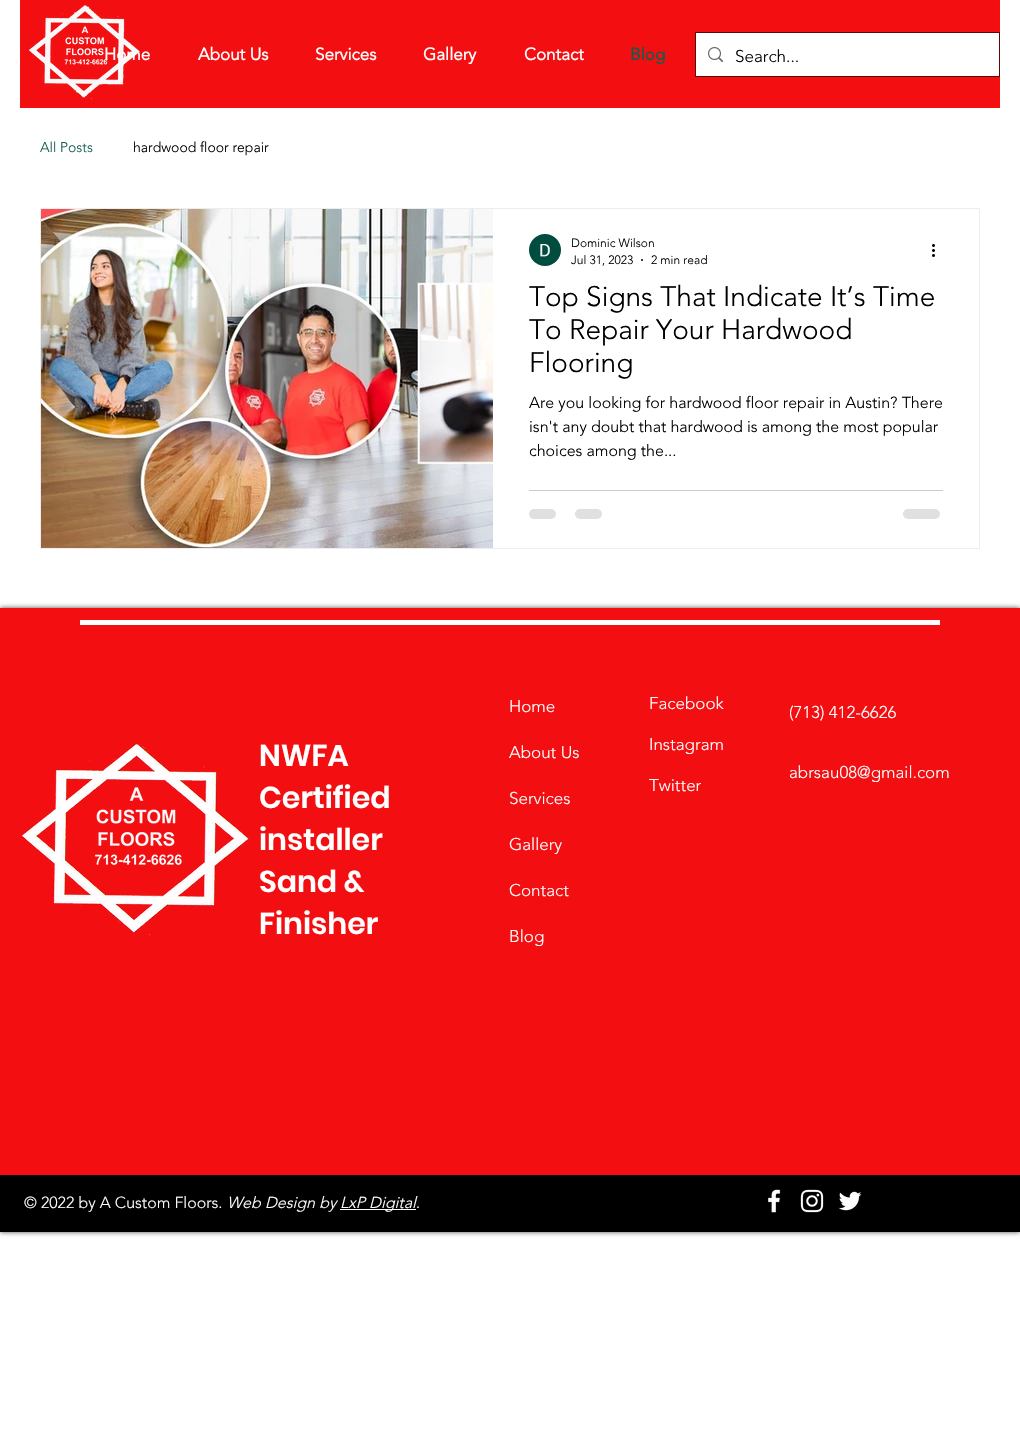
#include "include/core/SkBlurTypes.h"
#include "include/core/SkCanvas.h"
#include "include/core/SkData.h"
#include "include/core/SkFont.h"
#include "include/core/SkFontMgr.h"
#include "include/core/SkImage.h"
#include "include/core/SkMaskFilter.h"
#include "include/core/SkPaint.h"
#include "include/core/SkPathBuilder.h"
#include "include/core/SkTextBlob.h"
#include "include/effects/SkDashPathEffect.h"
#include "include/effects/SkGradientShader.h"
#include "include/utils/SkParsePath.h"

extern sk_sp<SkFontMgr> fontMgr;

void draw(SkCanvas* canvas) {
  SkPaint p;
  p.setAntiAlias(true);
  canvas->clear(SK_ColorWHITE);
  p.setColor(SkColorSetRGB(243, 14, 17));
  canvas->drawRect(SkRect::MakeLTRB(20, 0, 1000, 108), p);
  canvas->drawImageRect(SkImages::DeferredFromEncodedData(SkData::MakeFromFileName("images/1.png")), SkRect::MakeLTRB(29, 5, 140, 99), SkSamplingOptions());
  p.setStyle(SkPaint::kStroke_Style);
  p.setStrokeWidth(1);
  p.setColor(SkColorSetRGB(97, 6, 7));
  canvas->drawRect(SkRect::MakeLTRB(695.5f, 32.5f, 999.5f, 76.5f), p);
  p.setStyle(SkPaint::kFill_Style);
  p.setColor(SK_ColorWHITE);
  canvas->drawRect(SkRect::MakeLTRB(696, 33, 999, 76), p);
  canvas->drawImageRect(SkImages::DeferredFromEncodedData(SkData::MakeFromFileName("images/2.png")), SkRect::MakeLTRB(708, 47, 723, 62), SkSamplingOptions());
  p.setStyle(SkPaint::kStroke_Style);
  p.setColor(SkColorSetRGB(238, 236, 236));
  canvas->drawRect(SkRect::MakeLTRB(40.5f, 208.5f, 979.5f, 548.5f), p);
  canvas->drawImageRect(SkImages::DeferredFromEncodedData(SkData::MakeFromFileName("images/3.png")), SkRect::MakeLTRB(41, 209, 493, 548), SkSamplingOptions());
  canvas->drawImageRect(SkImages::DeferredFromEncodedData(SkData::MakeFromFileName("images/4.png")), SkRect::MakeLTRB(529, 234, 561, 266), SkSamplingOptions());
  p.setStyle(SkPaint::kFill_Style);
  p.setColor(SK_ColorBLACK);
  canvas->drawCircle(642, 260, 1, p);
  canvas->drawImageRect(SkImages::DeferredFromEncodedData(SkData::MakeFromFileName("images/5.png")), SkRect::MakeLTRB(932, 244, 935, 257), SkSamplingOptions());
  p.setColor(SkColorSetRGB(204, 204, 204));
  canvas->drawRect(SkRect::MakeLTRB(529, 490, 943, 491), p);
  p.setColor(SkColorSetRGB(224, 224, 224));
  canvas->drawRoundRect(SkRect::MakeLTRB(529, 509, 556, 519), 5, 5, p);
  canvas->drawRoundRect(SkRect::MakeLTRB(575, 509, 602, 519), 5, 5, p);
  canvas->drawRoundRect(SkRect::MakeLTRB(903, 509, 940, 519), 5, 5, p);
  p.setColor(SkColorSetARGB(179, 0, 0, 0));
  p.setMaskFilter(SkMaskFilter::MakeBlur(kNormal_SkBlurStyle, 2.5f));
  canvas->drawRect(SkRect::MakeLTRB(0, 608, 1020, 1232), p);
  p.setMaskFilter(nullptr);
  p.setColor(SkColorSetRGB(243, 14, 17));
  canvas->drawRect(SkRect::MakeLTRB(0, 608, 1020, 1175), p);
  p.setColor(SK_ColorWHITE);
  canvas->drawRect(SkRect::MakeLTRB(80, 620, 940, 625), p);
  canvas->drawImageRect(SkImages::DeferredFromEncodedData(SkData::MakeFromFileName("images/6.png")), SkRect::MakeLTRB(22, 744, 249, 936), SkSamplingOptions());
  p.setColor(SK_ColorBLACK);
  canvas->drawRect(SkRect::MakeLTRB(0, 1175, 1020, 1232), p);
  p.setColor(SK_ColorWHITE);
  canvas->drawRect(SkRect::MakeLTRB(340, 1209, 416, 1210), p);
  canvas->drawImageRect(SkImages::DeferredFromEncodedData(SkData::MakeFromFileName("images/7.png")), SkRect::MakeLTRB(768, 1189, 781, 1213), SkSamplingOptions());
  canvas->drawImageRect(SkImages::DeferredFromEncodedData(SkData::MakeFromFileName("images/8.png")), SkRect::MakeLTRB(800, 1189, 824, 1213), SkSamplingOptions());
  canvas->drawImageRect(SkImages::DeferredFromEncodedData(SkData::MakeFromFileName("images/9.png")), SkRect::MakeLTRB(839, 1191, 862, 1211), SkSamplingOptions());
  SkFont font1(fontMgr->matchFamilyStyle("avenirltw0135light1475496", SkFontStyle::Bold()), 17);
  font1.setSubpixel(true);
  canvas->drawString("Home", 104, 60, font1, p);
  canvas->drawString("About Us", 198, 60, font1, p);
  canvas->drawString("Services", 315, 60, font1, p);
  canvas->drawString("Gallery", 423, 60, font1, p);
  canvas->drawString("Contact", 524, 60, font1, p);
  p.setColor(SkColorSetRGB(18, 92, 77));
  canvas->drawString("Blog", 630, 60, font1, p);
  SkFont font2(fontMgr->matchFamilyStyle("avenirltw0135light1475496", SkFontStyle(300, SkFontStyle::kNormal_Width, SkFontStyle::kUpright_Slant)), 17);
  font2.setSubpixel(true);
  p.setColor(SK_ColorBLACK);
  canvas->drawString("Search...", 735, 62, font2, p);
  SkFont font3(fontMgr->matchFamilyStyle("avenirltw0135light1475496", SkFontStyle(300, SkFontStyle::kNormal_Width, SkFontStyle::kUpright_Slant)), 14);
  font3.setSubpixel(true);
  p.setColor(SkColorSetRGB(18, 92, 77));
  canvas->drawString("All Posts", 40, 152, font3, p);
  p.setColor(SK_ColorBLACK);
  canvas->drawString("hardwood floor repair", 133, 152, font3, p);
  SkFont font4(fontMgr->matchFamilyStyle("avenirltw0135light1475496", SkFontStyle(300, SkFontStyle::kNormal_Width, SkFontStyle::kUpright_Slant)), 12);
  font4.setSubpixel(true);
  canvas->drawString("Dominic Wilson", 571, 247, font4, p);
  canvas->drawString("Jul 31, 2023", 571, 264, font4, p);
  canvas->drawString("2 min read", 651, 264, font4, p);
  SkFont font5(fontMgr->matchFamilyStyle("avenirltw0135light1475496", SkFontStyle(300, SkFontStyle::kNormal_Width, SkFontStyle::kUpright_Slant)), 28);
  font5.setSubpixel(true);
  canvas->drawString("Top Signs That Indicate It’s Time", 529, 306, font5, p);
  canvas->drawString("To Repair Your Hardwood", 529, 339, font5, p);
  canvas->drawString("Flooring", 529, 372, font5, p);
  SkFont font6(fontMgr->matchFamilyStyle("avenirltw0135light1475496", SkFontStyle(300, SkFontStyle::kNormal_Width, SkFontStyle::kUpright_Slant)), 16);
  font6.setSubpixel(true);
  canvas->drawString("Are you looking for hardwood floor repair in Austin? There", 529, 408, font6, p);
  canvas->drawString("isn't any doubt that hardwood is among the most popular", 529, 432, font6, p);
  canvas->drawString("choices among the...", 529, 456, font6, p);
  SkFont font7(fontMgr->matchFamilyStyle("Poppins", SkFontStyle(600, SkFontStyle::kNormal_Width, SkFontStyle::kUpright_Slant)), 30);
  font7.setSubpixel(true);
  p.setColor(SK_ColorWHITE);
  canvas->drawString("NWFA", 259, 766, font7, p);
  canvas->drawString("Certified", 259, 808, font7, p);
  canvas->drawString("installer", 259, 850, font7, p);
  canvas->drawString("Sand &", 259, 892, font7, p);
  canvas->drawString("Finisher", 259, 934, font7, p);
  canvas->drawString("Home", 509, 712, font2, p);
  canvas->drawString("About Us", 509, 758, font2, p);
  canvas->drawString("Services", 509, 804, font2, p);
  canvas->drawString("Gallery", 509, 850, font2, p);
  canvas->drawString("Contact", 509, 896, font2, p);
  canvas->drawString("Blog", 509, 942, font2, p);
  canvas->drawString("Facebook", 649, 709, font2, p);
  canvas->drawString("Instagram", 649, 750, font2, p);
  canvas->drawString("Twitter", 649, 791, font2, p);
  canvas->drawString("(713) 412-6626", 789, 718, font2, p);
  canvas->drawString("abrsau08@gmail.com", 789, 778, font2, p);
  canvas->drawString("© 2022 by A Custom Floors.", 24, 1208, font6, p);
  SkFont font8(fontMgr->matchFamilyStyle("avenirltw0135light1475496", SkFontStyle(300, SkFontStyle::kNormal_Width, SkFontStyle::kItalic_Slant)), 16);
  font8.setSubpixel(true);
  canvas->drawString("Web Design by", 227, 1208, font8, p);
  canvas->drawString("LxP Digital.", 340, 1208, font8, p);
}
